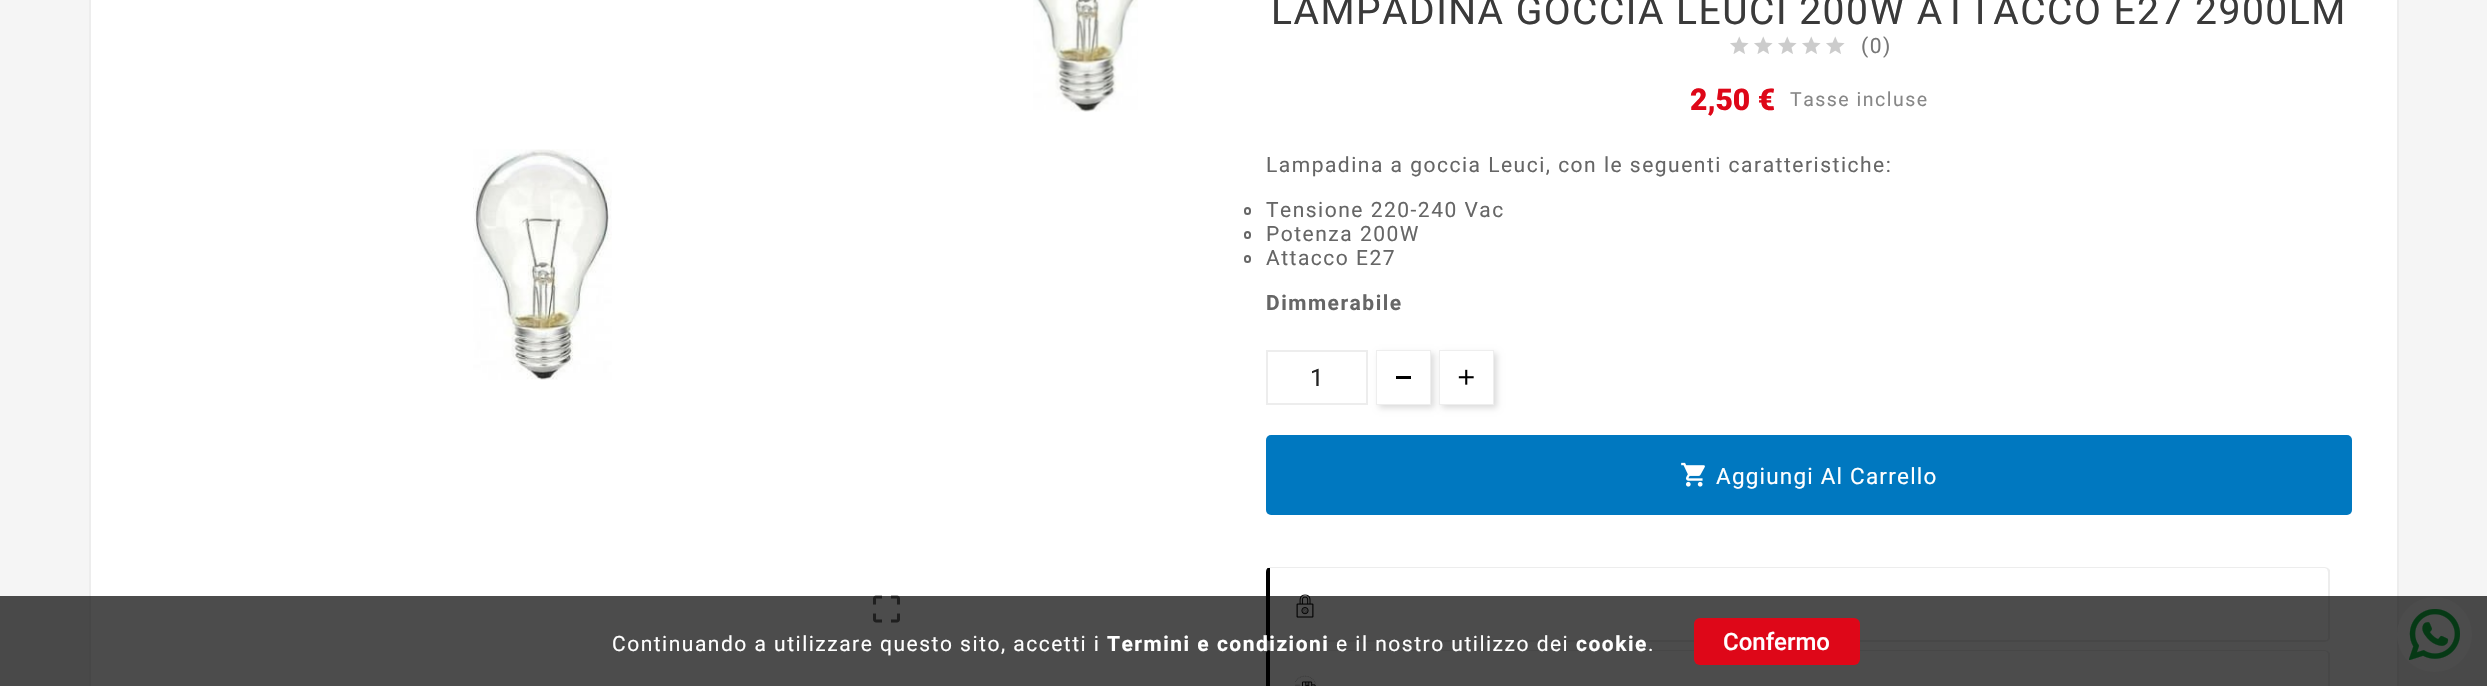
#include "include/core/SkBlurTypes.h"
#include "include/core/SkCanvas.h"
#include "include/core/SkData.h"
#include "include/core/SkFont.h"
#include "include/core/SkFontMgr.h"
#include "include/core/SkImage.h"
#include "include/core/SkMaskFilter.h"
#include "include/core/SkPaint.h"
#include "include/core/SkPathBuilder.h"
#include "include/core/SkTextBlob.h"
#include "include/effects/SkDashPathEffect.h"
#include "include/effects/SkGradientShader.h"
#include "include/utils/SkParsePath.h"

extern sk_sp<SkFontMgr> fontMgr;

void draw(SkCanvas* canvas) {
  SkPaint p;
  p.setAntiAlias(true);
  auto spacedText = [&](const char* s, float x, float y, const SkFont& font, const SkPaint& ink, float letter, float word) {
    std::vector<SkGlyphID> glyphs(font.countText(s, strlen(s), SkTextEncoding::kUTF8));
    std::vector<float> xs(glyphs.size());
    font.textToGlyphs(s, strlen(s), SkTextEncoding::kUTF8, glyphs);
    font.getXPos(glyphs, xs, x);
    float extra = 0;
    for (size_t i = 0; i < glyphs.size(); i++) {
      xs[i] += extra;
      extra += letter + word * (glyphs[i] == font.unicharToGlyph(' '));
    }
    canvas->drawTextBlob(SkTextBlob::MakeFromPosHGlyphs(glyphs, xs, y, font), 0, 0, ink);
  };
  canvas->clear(SkColorSetRGB(245, 245, 245));
  p.setColor(SK_ColorWHITE);
  canvas->drawRect(SkRect::MakeLTRB(90, -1, 2398, 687), p);
  p.setStyle(SkPaint::kStroke_Style);
  p.setStrokeWidth(2);
  p.setColor(SkColorSetRGB(237, 237, 237));
  canvas->drawRect(SkRect::MakeLTRB(90, -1, 2398, 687), p);
  canvas->drawImageRect(SkImages::DeferredFromEncodedData(SkData::MakeFromFileName("images/1.png")), SkRect::MakeLTRB(1033, 0, 1138, 112), SkSamplingOptions());
  canvas->drawImageRect(SkImages::DeferredFromEncodedData(SkData::MakeFromFileName("images/2.png")), SkRect::MakeLTRB(473, 149, 612, 380), SkSamplingOptions());
  canvas->drawImageRect(SkImages::DeferredFromEncodedData(SkData::MakeFromFileName("images/3.png")), SkRect::MakeLTRB(873, 595, 900, 623), SkSamplingOptions());
  canvas->drawImageRect(SkImages::DeferredFromEncodedData(SkData::MakeFromFileName("images/4.png")), SkRect::MakeLTRB(1730, 36, 1749, 54), SkSamplingOptions());
  canvas->drawImageRect(SkImages::DeferredFromEncodedData(SkData::MakeFromFileName("images/4.png")), SkRect::MakeLTRB(1754, 36, 1773, 54), SkSamplingOptions());
  canvas->drawImageRect(SkImages::DeferredFromEncodedData(SkData::MakeFromFileName("images/4.png")), SkRect::MakeLTRB(1778, 36, 1797, 54), SkSamplingOptions());
  canvas->drawImageRect(SkImages::DeferredFromEncodedData(SkData::MakeFromFileName("images/4.png")), SkRect::MakeLTRB(1802, 36, 1821, 54), SkSamplingOptions());
  canvas->drawImageRect(SkImages::DeferredFromEncodedData(SkData::MakeFromFileName("images/4.png")), SkRect::MakeLTRB(1826, 36, 1845, 54), SkSamplingOptions());
  p.setColor(SkColorSetRGB(102, 102, 102));
  canvas->drawRoundRect(SkRect::MakeLTRB(1245, 208, 1250, 214), 2.5f, 2.5f, p);
  canvas->drawRoundRect(SkRect::MakeLTRB(1245, 232, 1250, 238), 2.5f, 2.5f, p);
  canvas->drawRoundRect(SkRect::MakeLTRB(1245, 256, 1250, 262), 2.5f, 2.5f, p);
  p.setColor(SkColorSetRGB(237, 237, 237));
  canvas->drawRect(SkRect::MakeLTRB(1267, 351, 1367, 404), p);
  p.setStyle(SkPaint::kFill_Style);
  p.setColor(SkColorSetARGB(36, 0, 0, 0));
  p.setMaskFilter(SkMaskFilter::MakeBlur(kNormal_SkBlurStyle, 3));
  canvas->drawRect(SkRect::MakeLTRB(1379, 353, 1434, 408), p);
  p.setMaskFilter(nullptr);
  p.setStyle(SkPaint::kStroke_Style);
  p.setColor(SkColorSetRGB(238, 238, 238));
  canvas->drawRect(SkRect::MakeLTRB(1377, 351, 1430, 404), p);
  p.setStyle(SkPaint::kFill_Style);
  p.setColor(SK_ColorWHITE);
  canvas->drawRect(SkRect::MakeLTRB(1377, 351, 1430, 404), p);
  p.setColor(SK_ColorBLACK);
  canvas->drawRect(SkRect::MakeLTRB(1396, 376, 1411, 379), p);
  p.setColor(SkColorSetARGB(36, 0, 0, 0));
  p.setMaskFilter(SkMaskFilter::MakeBlur(kNormal_SkBlurStyle, 3));
  canvas->drawRect(SkRect::MakeLTRB(1442, 353, 1497, 408), p);
  p.setMaskFilter(nullptr);
  p.setStyle(SkPaint::kStroke_Style);
  p.setColor(SkColorSetRGB(238, 238, 238));
  canvas->drawRect(SkRect::MakeLTRB(1440, 351, 1493, 404), p);
  p.setStyle(SkPaint::kFill_Style);
  p.setColor(SK_ColorWHITE);
  canvas->drawRect(SkRect::MakeLTRB(1440, 351, 1493, 404), p);
  canvas->drawImageRect(SkImages::DeferredFromEncodedData(SkData::MakeFromFileName("images/5.png")), SkRect::MakeLTRB(1458, 369, 1474, 385), SkSamplingOptions());
  p.setColor(SkColorSetRGB(0, 120, 192));
  canvas->drawRoundRect(SkRect::MakeLTRB(1266, 435, 2352, 515), 5, 5, p);
  canvas->drawImageRect(SkImages::DeferredFromEncodedData(SkData::MakeFromFileName("images/6.png")), SkRect::MakeLTRB(1681, 462, 1705, 487), SkSamplingOptions());
  p.setColor(SkColorSetRGB(237, 237, 237));
  canvas->drawPath(SkPathBuilder().moveTo(1270, 567).lineTo(1268, 568).lineTo(1270, 568).lineTo(2325, 568).lineTo(2327, 569).lineTo(2328, 568).lineTo(2325, 567).close().detach(), p);
  p.setColor(SkColorSetARGB(18, 0, 0, 0));
  canvas->drawPath(SkPathBuilder().moveTo(2330, 639).lineTo(2328, 641).lineTo(2327, 640).lineTo(2328, 638).lineTo(2328, 572).lineTo(2327, 569).lineTo(2328, 568).lineTo(2330, 570).close().detach(), p);
  canvas->drawPath(SkPathBuilder().moveTo(1270, 642).lineTo(2325, 642).lineTo(2328, 641).lineTo(2327, 640).lineTo(2325, 640).lineTo(1272, 640).lineTo(1268, 641).close().detach(), p);
  p.setColor(SK_ColorBLACK);
  canvas->drawPath(SkPathBuilder().moveTo(1266, 572).lineTo(1266, 638).lineTo(1268, 641).lineTo(1272, 640).lineTo(1270, 640).lineTo(1270, 568).lineTo(1268, 568).cubicTo(1267, 568, 1266, 570, 1266, 572).close().detach(), p);
  canvas->drawImageRect(SkImages::DeferredFromEncodedData(SkData::MakeFromFileName("images/7.png")), SkRect::MakeLTRB(1296, 594, 1314, 618), SkSamplingOptions());
  p.setColor(SkColorSetRGB(237, 237, 237));
  canvas->drawPath(SkPathBuilder().moveTo(1270, 650).lineTo(1269, 650).lineTo(1270, 651).lineTo(2325, 651).lineTo(2327, 652).lineTo(2328, 651).lineTo(2325, 650).close().detach(), p);
  p.setColor(SkColorSetARGB(18, 0, 0, 0));
  canvas->drawPath(SkPathBuilder().moveTo(2330, 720).lineTo(2328, 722).lineTo(2327, 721).cubicTo(2329, 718, 2328, 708, 2328, 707).lineTo(2328, 654).lineTo(2327, 652).lineTo(2328, 651).lineTo(2330, 653).close().detach(), p);
  p.setColor(SK_ColorBLACK);
  canvas->drawPath(SkPathBuilder().moveTo(1270, 651).lineTo(1269, 650).cubicTo(1267, 651, 1266, 652, 1266, 653).lineTo(1266, 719).lineTo(1268, 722).lineTo(1270, 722).close().detach(), p);
  canvas->drawImageRect(SkImages::DeferredFromEncodedData(SkData::MakeFromFileName("images/8.png")), SkRect::MakeLTRB(1295, 675, 1316, 686), SkSamplingOptions());
  p.setColor(SK_ColorWHITE);
  canvas->drawCircle(2434.5f, 634.5f, 37.5f, p);
  canvas->drawImageRect(SkImages::DeferredFromEncodedData(SkData::MakeFromFileName("images/9.png")), SkRect::MakeLTRB(2409, 609, 2460, 660), SkSamplingOptions());
  p.setColor(SkColorSetARGB(179, 0, 0, 0));
  canvas->drawRect(SkRect::MakeLTRB(0, 596, 2487, 686), p);
  p.setColor(SkColorSetRGB(222, 7, 24));
  canvas->drawRoundRect(SkRect::MakeLTRB(1694, 618, 1860, 665), 6, 6, p);
  SkFont font1(fontMgr->matchFamilyStyle("Roboto", SkFontStyle::Normal()), 39);
  font1.setSubpixel(true);
  p.setColor(SkColorSetRGB(58, 58, 58));
  spacedText("LAMPADINA GOCCIA LEUCI 200W ATTACCO E27 2900LM", 1271, 24, font1, p, 1.5f, 0);
  SkFont font2(fontMgr->matchFamilyStyle("Roboto", SkFontStyle::Normal()), 21);
  font2.setSubpixel(true);
  p.setColor(SkColorSetRGB(119, 119, 119));
  spacedText("(0)", 1861, 53, font2, p, 1.5f, 0);
  SkFont font3(fontMgr->matchFamilyStyle("Roboto", SkFontStyle(900, SkFontStyle::kNormal_Width, SkFontStyle::kUpright_Slant)), 30);
  font3.setSubpixel(true);
  p.setColor(SkColorSetRGB(222, 7, 24));
  canvas->drawString("2,50 €", 1690, 110, font3, p);
  SkFont font4(fontMgr->matchFamilyStyle("Roboto", SkFontStyle::Normal()), 19.5f);
  font4.setSubpixel(true);
  p.setColor(SkColorSetRGB(135, 135, 135));
  spacedText("Tasse incluse", 1790, 106, font4, p, 1.5f, 0);
  p.setColor(SkColorSetRGB(102, 102, 102));
  spacedText("Lampadina a goccia Leuci, con le seguenti caratteristiche:", 1266, 172, font2, p, 1.5f, 0);
  spacedText("Tensione 220-240 Vac", 1266, 217, font2, p, 1.5f, 0);
  spacedText("Potenza 200W", 1266, 241, font2, p, 1.5f, 0);
  spacedText("Attacco E27", 1266, 265, font2, p, 1.5f, 0);
  SkFont font5(fontMgr->matchFamilyStyle("Roboto", SkFontStyle::Bold()), 21);
  font5.setSubpixel(true);
  spacedText("Dimmerabile", 1266, 310, font5, p, 1.5f, 0);
  SkFont font6(fontMgr->matchFamilyStyle("Roboto", SkFontStyle::Normal()), 24);
  font6.setSubpixel(true);
  p.setColor(SkColorSetRGB(35, 35, 35));
  canvas->drawString("1", 1310, 386, font6, p);
  SkFont font7(fontMgr->matchFamilyStyle("Roboto", SkFontStyle::Normal()), 22.5f);
  font7.setSubpixel(true);
  p.setColor(SK_ColorWHITE);
  spacedText("Aggiungi Al Carrello", 1716, 484, font7, p, 1.2f, 0);
  spacedText("Continuando a utilizzare questo sito, accetti i", 612, 651, font2, p, 1.5f, 0);
  spacedText("Termini e condizioni", 1107, 651, font5, p, 1.5f, 0);
  spacedText("e il nostro utilizzo dei", 1336, 651, font2, p, 1.5f, 0);
  spacedText("cookie", 1576, 651, font5, p, 1.5f, 0);
  spacedText(".", 1648, 651, font2, p, 1.5f, 0);
  SkFont font8(fontMgr->matchFamilyStyle("Roboto", SkFontStyle(500, SkFontStyle::kNormal_Width, SkFontStyle::kUpright_Slant)), 24);
  font8.setSubpixel(true);
  canvas->drawString("Confermo", 1723, 650, font8, p);
}
